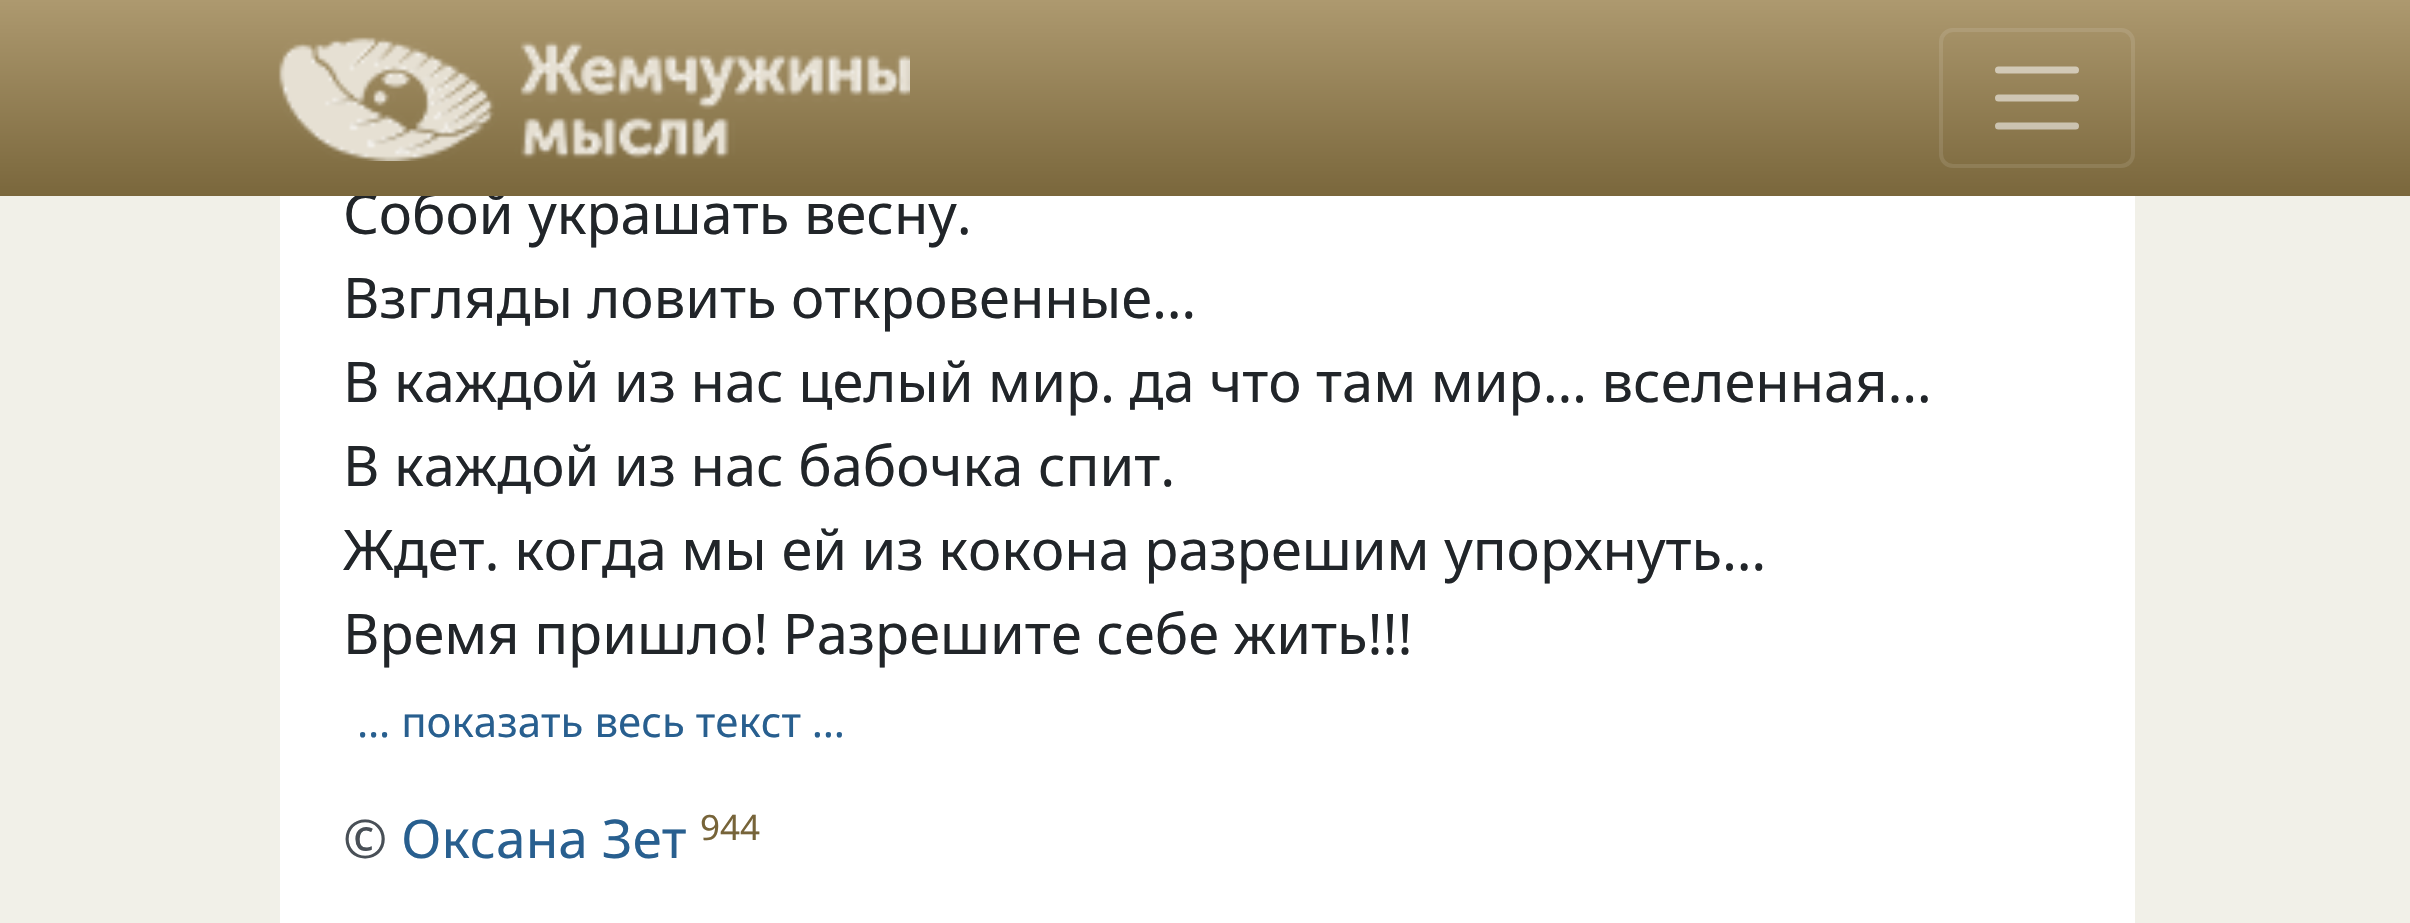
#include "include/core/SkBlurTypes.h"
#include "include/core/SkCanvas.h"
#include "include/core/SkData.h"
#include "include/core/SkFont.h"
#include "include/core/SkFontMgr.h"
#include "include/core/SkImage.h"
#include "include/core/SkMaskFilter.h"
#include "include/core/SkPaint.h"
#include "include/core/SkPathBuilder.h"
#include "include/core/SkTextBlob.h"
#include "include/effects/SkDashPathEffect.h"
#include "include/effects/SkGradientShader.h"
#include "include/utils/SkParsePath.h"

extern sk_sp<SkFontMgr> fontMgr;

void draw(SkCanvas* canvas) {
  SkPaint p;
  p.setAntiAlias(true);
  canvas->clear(SkColorSetRGB(241, 240, 232));
  p.setColor(SK_ColorWHITE);
  canvas->drawRect(SkRect::MakeLTRB(280, 196, 2135, 923), p);
  SkFont font1(fontMgr->matchFamilyStyle("Noto Sans", SkFontStyle::Normal()), 56);
  font1.setSubpixel(true);
  p.setColor(SkColorSetRGB(33, 37, 41));
  canvas->drawString("Собой украшать весну.", 343, 234, font1, p);
  {
    const SkColor colors[] = {SkColorSetRGB(173, 153, 111), SkColorSetRGB(122, 103, 60)};
    const float stops[] = {0, 1};
    const SkPoint ends[] = {{1206, 0}, {1206, 196}};
    p.setShader(SkGradientShader::MakeLinear(ends, colors, stops, 2, SkTileMode::kClamp));
    p.setAlpha(255);
  }
  canvas->drawRect(SkRect::MakeLTRB(0, 0, 2410, 196), p);
  p.setStyle(SkPaint::kStroke_Style);
  p.setStrokeWidth(4);
  p.setShader(nullptr);
  p.setColor(SkColorSetARGB(26, 255, 255, 255));
  canvas->drawRoundRect(SkRect::MakeLTRB(1941, 30, 2133, 166), 12, 12, p);
  p.setStrokeWidth(7);
  p.setStrokeCap(SkPaint::kRound_Cap);
  p.setColor(SkColorSetARGB(140, 255, 255, 255));
  canvas->drawPath(SkPathBuilder().moveTo(1998.5f, 70).lineTo(2075.5f, 70).moveTo(1998.5f, 98).lineTo(2075.5f, 98).moveTo(1998.5f, 126).lineTo(2075.5f, 126).detach(), p);
  canvas->drawImageRect(SkImages::DeferredFromEncodedData(SkData::MakeFromFileName("images/1.png")), SkRect::MakeLTRB(278, 37, 910, 161), SkSamplingOptions());
  p.setStyle(SkPaint::kFill_Style);
  p.setColor(SkColorSetRGB(33, 37, 41));
  canvas->drawString("Взгляды ловить откровенные…", 343, 318, font1, p);
  canvas->drawString("В каждой из нас целый мир. да что там мир… вселенная…", 343, 402, font1, p);
  canvas->drawString("В каждой из нас бабочка спит.", 343, 486, font1, p);
  canvas->drawString("Ждет. когда мы ей из кокона разрешим упорхнуть…", 343, 570, font1, p);
  canvas->drawString("Время пришло! Разрешите себе жить!!!", 343, 654, font1, p);
  SkFont font2(fontMgr->matchFamilyStyle("Noto Sans", SkFontStyle::Normal()), 42);
  font2.setSubpixel(true);
  p.setColor(SkColorSetRGB(40, 95, 143));
  canvas->drawString("… показать весь текст …", 357, 737, font2, p);
  SkFont font3(fontMgr->matchFamilyStyle("Noto Sans", SkFontStyle::Normal()), 53.25f);
  font3.setSubpixel(true);
  p.setColor(SkColorSetRGB(73, 80, 87));
  canvas->drawString("©", 343, 858, font3, p);
  p.setColor(SkColorSetRGB(40, 95, 143));
  canvas->drawString("Оксана Зет", 401, 858, font3, p);
  SkFont font4(fontMgr->matchFamilyStyle("Noto Sans", SkFontStyle::Normal()), 35);
  font4.setSubpixel(true);
  p.setColor(SkColorSetRGB(119, 100, 57));
  canvas->drawString("944", 700, 840, font4, p);
}
